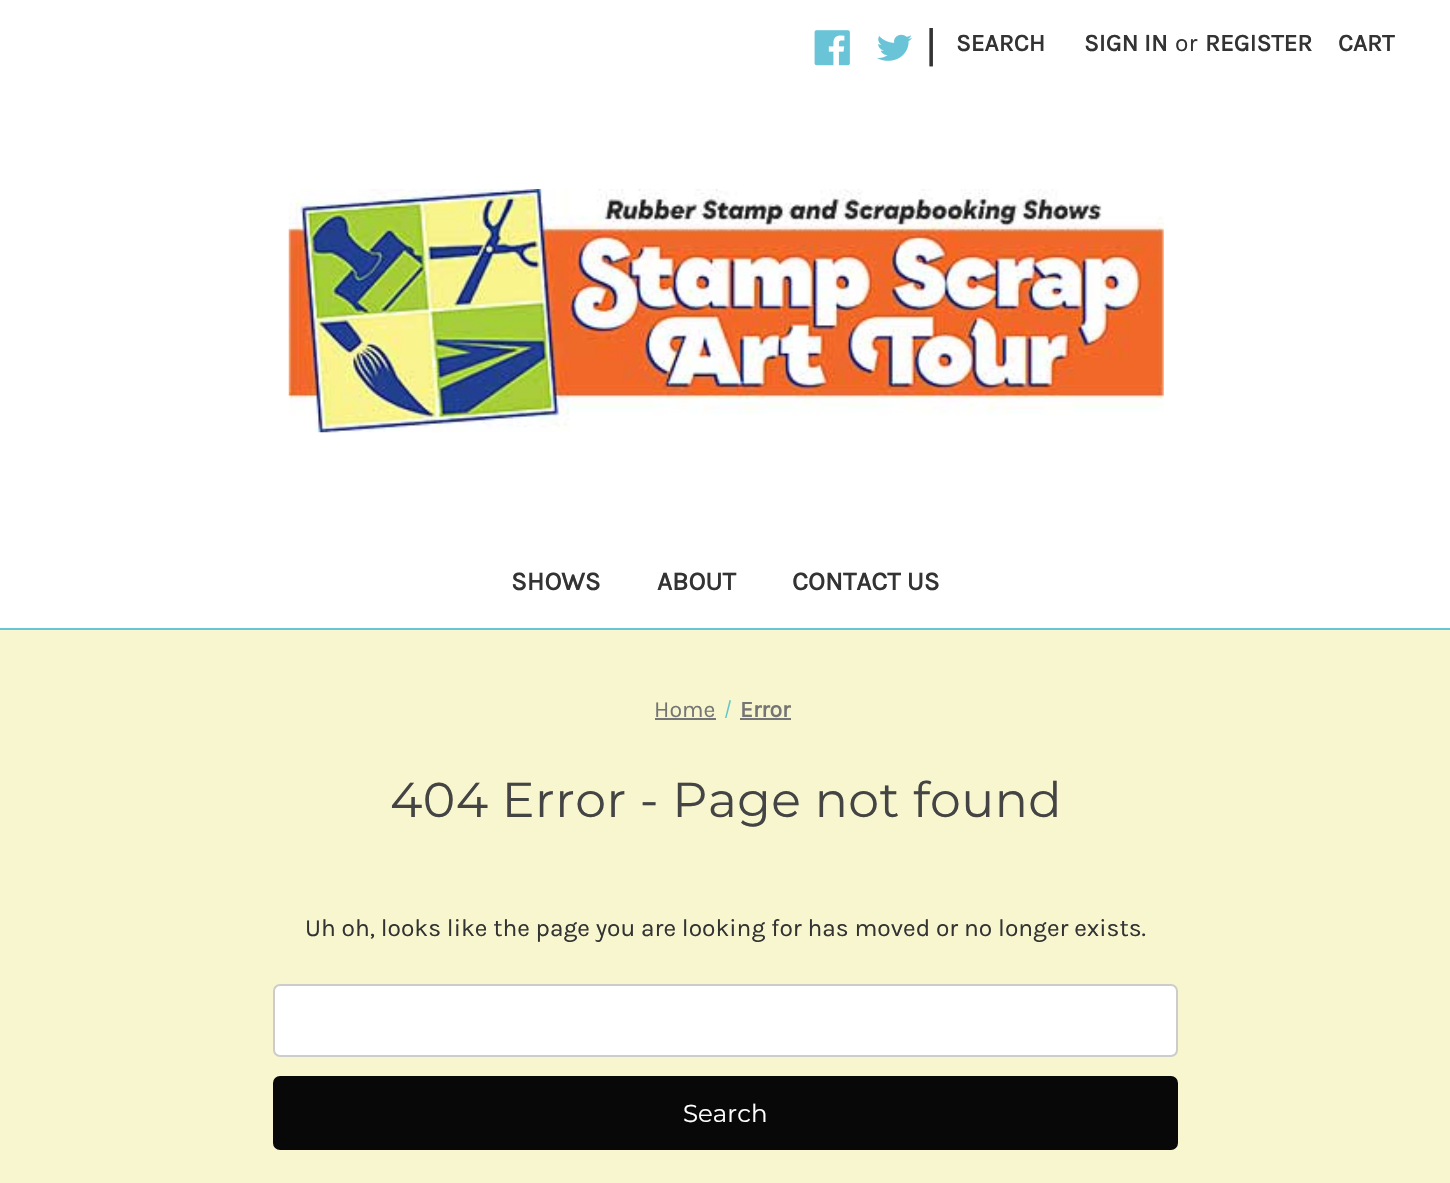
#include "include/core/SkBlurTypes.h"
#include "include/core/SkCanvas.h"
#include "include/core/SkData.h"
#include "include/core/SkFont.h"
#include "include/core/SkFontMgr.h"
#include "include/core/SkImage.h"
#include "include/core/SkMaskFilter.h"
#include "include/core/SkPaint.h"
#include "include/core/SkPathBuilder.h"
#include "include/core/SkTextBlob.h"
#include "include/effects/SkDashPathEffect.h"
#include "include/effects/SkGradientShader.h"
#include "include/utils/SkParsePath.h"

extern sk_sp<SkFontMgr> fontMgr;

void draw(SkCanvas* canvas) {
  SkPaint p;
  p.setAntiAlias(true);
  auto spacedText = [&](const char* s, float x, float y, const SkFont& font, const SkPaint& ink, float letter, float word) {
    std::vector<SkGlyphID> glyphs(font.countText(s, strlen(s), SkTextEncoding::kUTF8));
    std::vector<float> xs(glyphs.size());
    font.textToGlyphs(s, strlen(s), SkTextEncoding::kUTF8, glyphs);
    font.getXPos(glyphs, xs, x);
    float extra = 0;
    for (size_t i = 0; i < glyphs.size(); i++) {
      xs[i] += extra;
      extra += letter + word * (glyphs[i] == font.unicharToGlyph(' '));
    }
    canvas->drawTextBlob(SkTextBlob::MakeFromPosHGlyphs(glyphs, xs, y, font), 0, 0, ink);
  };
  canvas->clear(SkColorSetRGB(247, 246, 207));
  p.setColor(SK_ColorWHITE);
  canvas->drawRect(SkRect::MakeLTRB(0, 0, 1450, 628), p);
  p.setColor(SkColorSetRGB(106, 196, 216));
  canvas->drawRect(SkRect::MakeLTRB(0, 628, 1450, 630), p);
  canvas->drawImageRect(SkImages::DeferredFromEncodedData(SkData::MakeFromFileName("images/1.png")), SkRect::MakeLTRB(814, 30, 850, 66), SkSamplingOptions());
  canvas->drawImageRect(SkImages::DeferredFromEncodedData(SkData::MakeFromFileName("images/2.png")), SkRect::MakeLTRB(877, 34, 912, 61), SkSamplingOptions());
  canvas->drawImageRect(SkImages::DeferredFromEncodedData(SkData::MakeFromFileName("images/3.png")), SkRect::MakeLTRB(288, 189, 1164, 433), SkSamplingOptions());
  p.setColor(SkColorSetRGB(117, 117, 117));
  canvas->drawRect(SkRect::MakeLTRB(655, 718, 716, 720), p);
  p.setColor(SkColorSetRGB(100, 197, 200));
  canvas->drawPath(SkPathBuilder().moveTo(729.5f, 700).lineTo(731, 700.5f).lineTo(726.5f, 718).lineTo(725, 718).close().detach(), p);
  p.setColor(SkColorSetRGB(117, 117, 117));
  canvas->drawRect(SkRect::MakeLTRB(740, 718, 791, 720), p);
  p.setColor(SK_ColorWHITE);
  canvas->drawRoundRect(SkRect::MakeLTRB(274, 985, 1177, 1056), 6, 6, p);
  p.setStyle(SkPaint::kStroke_Style);
  p.setStrokeWidth(2);
  p.setColor(SkColorSetRGB(204, 204, 204));
  canvas->drawRoundRect(SkRect::MakeLTRB(274, 985, 1177, 1056), 6, 6, p);
  p.setStyle(SkPaint::kFill_Style);
  p.setColor(SkColorSetRGB(8, 8, 8));
  canvas->drawRoundRect(SkRect::MakeLTRB(274, 1077, 1177, 1149), 6, 6, p);
  p.setStyle(SkPaint::kStroke_Style);
  canvas->drawRoundRect(SkRect::MakeLTRB(274, 1077, 1177, 1149), 6, 6, p);
  SkFont font1(fontMgr->matchFamilyStyle("Karla", SkFontStyle::Normal()), 44);
  font1.setSubpixel(true);
  p.setStyle(SkPaint::kFill_Style);
  p.setColor(SkColorSetRGB(51, 51, 51));
  canvas->drawString("|", 925, 61, font1, p);
  SkFont font2(fontMgr->matchFamilyStyle("Karla", SkFontStyle::Bold()), 24.5f);
  font2.setSubpixel(true);
  canvas->drawString("SEARCH", 956, 51, font2, p);
  canvas->drawString("SIGN IN", 1084, 51, font2, p);
  SkFont font3(fontMgr->matchFamilyStyle("Karla", SkFontStyle::Normal()), 24.5f);
  font3.setSubpixel(true);
  canvas->drawString("or", 1175, 51, font3, p);
  canvas->drawString("REGISTER", 1205, 51, font2, p);
  canvas->drawString("CART", 1338, 51, font2, p);
  SkFont font4(fontMgr->matchFamilyStyle("Karla", SkFontStyle::Bold()), 26.25f);
  font4.setSubpixel(true);
  canvas->drawString("SHOWS", 511, 590, font4, p);
  canvas->drawString("ABOUT", 657, 590, font4, p);
  canvas->drawString("CONTACT US", 792, 590, font4, p);
  SkFont font5(fontMgr->matchFamilyStyle("Karla", SkFontStyle::Normal()), 23);
  font5.setSubpixel(true);
  p.setColor(SkColorSetRGB(117, 117, 117));
  canvas->drawString("Home", 654, 717, font5, p);
  SkFont font6(fontMgr->matchFamilyStyle("Karla", SkFontStyle::Bold()), 23);
  font6.setSubpixel(true);
  canvas->drawString("Error", 740, 717, font6, p);
  SkFont font7(fontMgr->matchFamilyStyle("Montserrat", SkFontStyle(100, SkFontStyle::kNormal_Width, SkFontStyle::kUpright_Slant)), 49);
  font7.setSubpixel(true);
  p.setColor(SkColorSetRGB(68, 68, 68));
  spacedText("404 Error - Page not found", 390, 817, font7, p, 0.45f, 0);
  p.setColor(SkColorSetRGB(51, 51, 51));
  canvas->drawString("Uh oh, looks like the page you are looking for has moved or no longer exists.", 305, 936, font3, p);
  SkFont font8(fontMgr->matchFamilyStyle("Montserrat", SkFontStyle(100, SkFontStyle::kNormal_Width, SkFontStyle::kUpright_Slant)), 24.5f);
  font8.setSubpixel(true);
  p.setColor(SK_ColorWHITE);
  canvas->drawString("Search", 683, 1122, font8, p);
}
